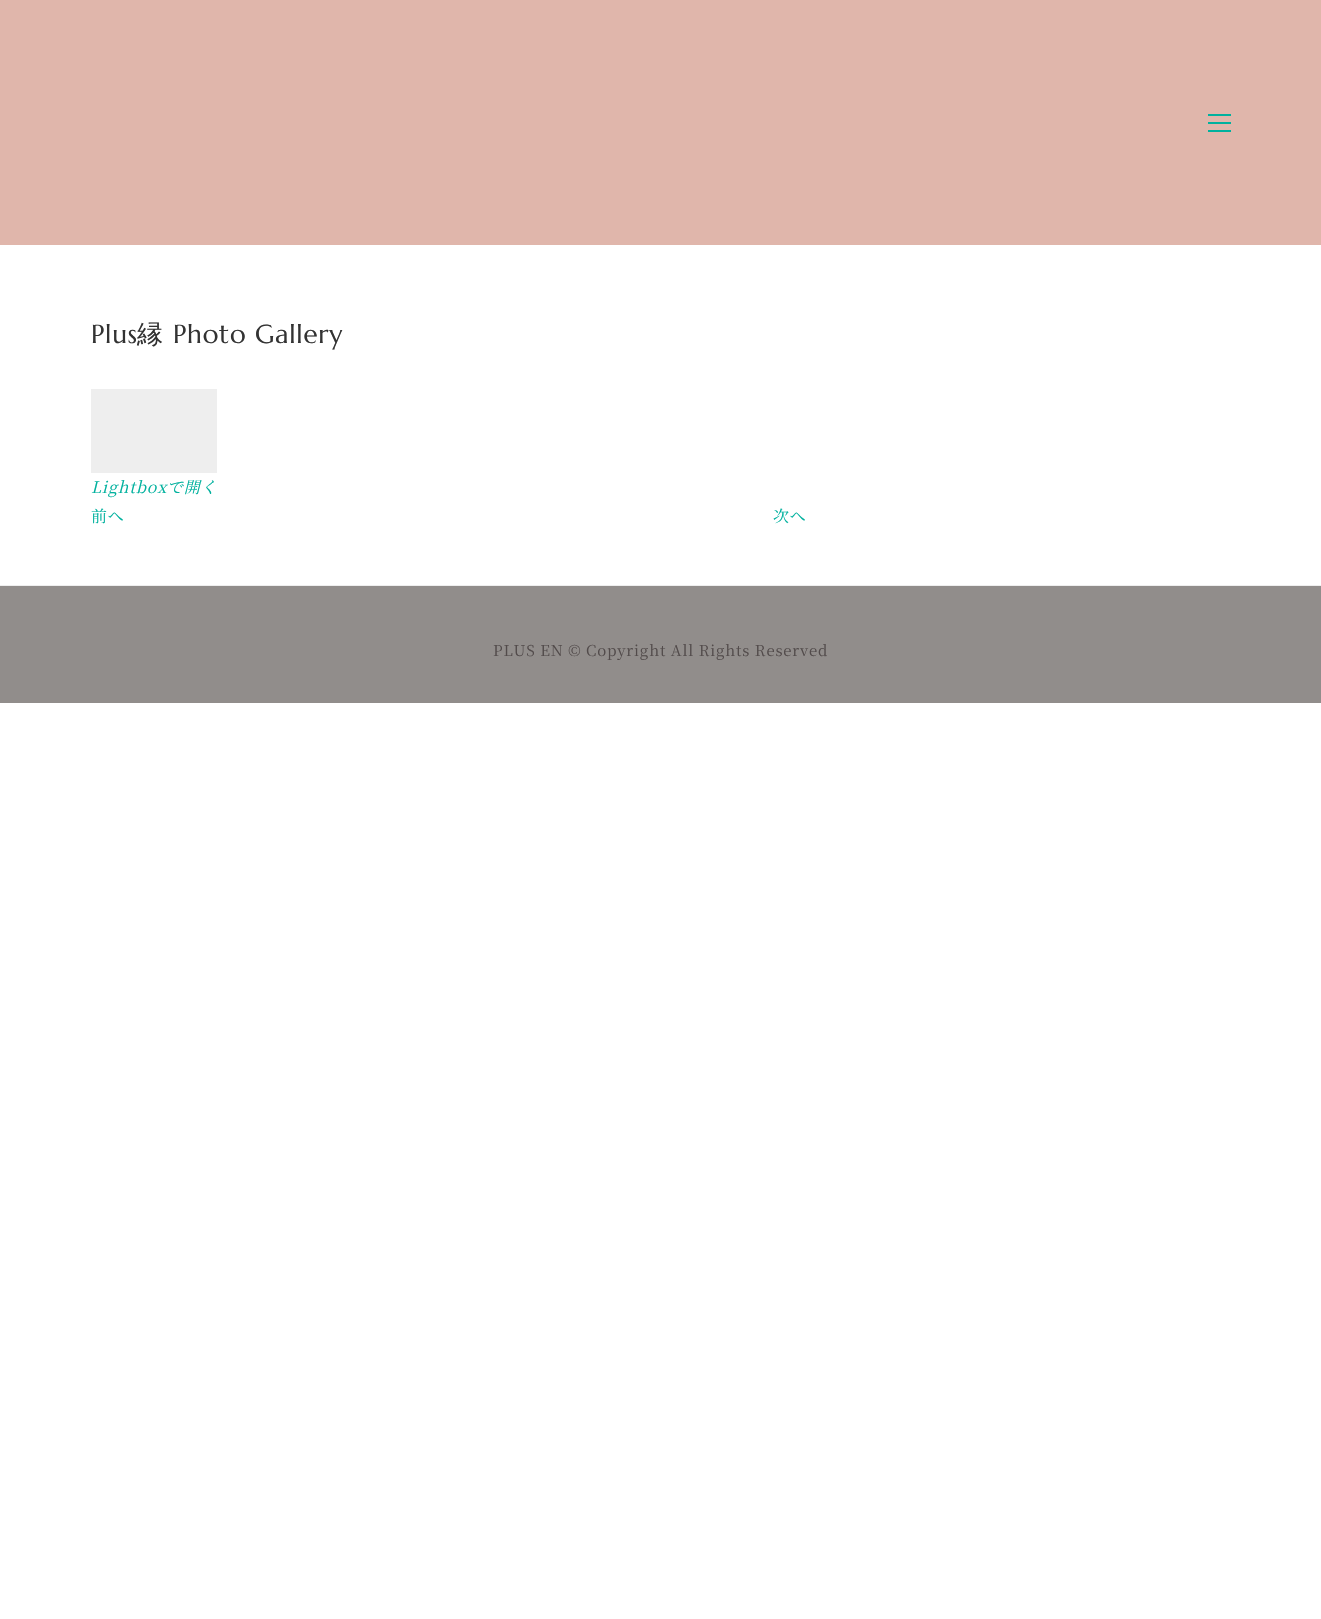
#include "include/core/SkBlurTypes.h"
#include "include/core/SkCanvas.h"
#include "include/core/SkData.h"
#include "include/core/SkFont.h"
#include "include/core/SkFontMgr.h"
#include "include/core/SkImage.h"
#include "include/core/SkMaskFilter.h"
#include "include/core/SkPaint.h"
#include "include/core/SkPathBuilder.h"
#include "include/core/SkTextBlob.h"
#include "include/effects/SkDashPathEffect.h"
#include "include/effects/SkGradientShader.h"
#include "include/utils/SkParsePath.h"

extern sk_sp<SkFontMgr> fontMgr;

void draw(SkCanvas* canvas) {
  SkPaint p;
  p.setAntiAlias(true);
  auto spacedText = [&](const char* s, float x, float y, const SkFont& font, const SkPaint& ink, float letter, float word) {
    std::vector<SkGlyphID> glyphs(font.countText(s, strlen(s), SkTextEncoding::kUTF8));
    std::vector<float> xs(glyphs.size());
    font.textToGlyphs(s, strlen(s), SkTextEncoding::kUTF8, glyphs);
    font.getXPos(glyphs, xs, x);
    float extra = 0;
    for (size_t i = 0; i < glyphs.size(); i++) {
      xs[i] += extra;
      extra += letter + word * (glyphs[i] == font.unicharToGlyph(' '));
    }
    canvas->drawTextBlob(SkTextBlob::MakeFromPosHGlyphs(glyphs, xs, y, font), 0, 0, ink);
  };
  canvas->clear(SK_ColorWHITE);
  p.setColor(SkColorSetRGB(224, 182, 171));
  canvas->drawRect(SkRect::MakeLTRB(0, 0, 1321, 245), p);
  p.setColor(SkColorSetRGB(0, 177, 158));
  canvas->drawRect(SkRect::MakeLTRB(1208, 114, 1231, 116), p);
  canvas->drawRect(SkRect::MakeLTRB(1208, 122, 1231, 124), p);
  canvas->drawRect(SkRect::MakeLTRB(1208, 130, 1231, 132), p);
  p.setColor(SkColorSetRGB(238, 238, 238));
  canvas->drawRect(SkRect::MakeLTRB(91, 389, 217, 473), p);
  p.setColor(SkColorSetRGB(145, 141, 139));
  canvas->drawRect(SkRect::MakeLTRB(0, 586, 1321, 703), p);
  p.setColor(SkColorSetRGB(238, 238, 238));
  canvas->drawRect(SkRect::MakeLTRB(0, 585, 1321, 586), p);
  SkFont font1(fontMgr->matchFamilyStyle("Marcellus", SkFontStyle::Normal()), 26);
  font1.setSubpixel(true);
  p.setColor(SkColorSetRGB(51, 51, 51));
  spacedText("Plus", 91, 343, font1, p, 0.8f, 0);
  SkFont font2(fontMgr->matchFamilyStyle("WenQuanYi Zen Hei", SkFontStyle(500, SkFontStyle::kNormal_Width, SkFontStyle::kUpright_Slant)), 26);
  font2.setSubpixel(true);
  spacedText("縁", 137, 343, font2, p, 0.8f, 0);
  spacedText("Photo Gallery", 173, 343, font1, p, 0.8f, 0);
  SkFont font3(fontMgr->matchFamilyStyle("Noto Serif JP", SkFontStyle(200, SkFontStyle::kNormal_Width, SkFontStyle::kItalic_Slant)), 16);
  font3.setSubpixel(true);
  p.setColor(SkColorSetRGB(0, 177, 158));
  spacedText("Lightboxで開く", 91, 493, font3, p, 0.8f, 0);
  SkFont font4(fontMgr->matchFamilyStyle("Noto Serif JP", SkFontStyle(200, SkFontStyle::kNormal_Width, SkFontStyle::kUpright_Slant)), 16);
  font4.setSubpixel(true);
  spacedText("前へ", 91, 522, font4, p, 0.8f, 0);
  spacedText("次へ", 773, 522, font4, p, 0.8f, 0);
  SkFont font5(fontMgr->matchFamilyStyle("Noto Serif JP", SkFontStyle(200, SkFontStyle::kNormal_Width, SkFontStyle::kUpright_Slant)), 15);
  font5.setSubpixel(true);
  p.setColor(SkColorSetRGB(82, 75, 75));
  spacedText("PLUS EN © Copyright All Rights Reserved", 493, 656, font5, p, 0.8f, 0);
}
